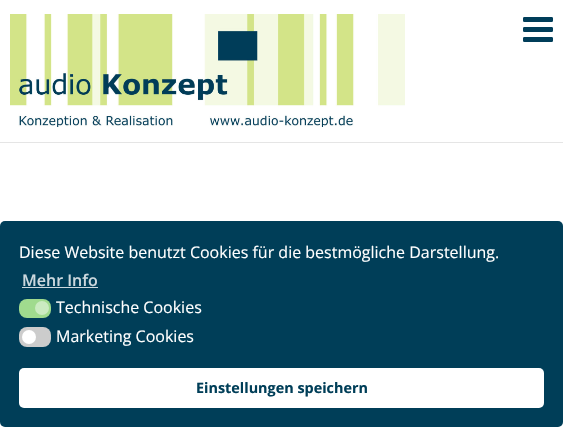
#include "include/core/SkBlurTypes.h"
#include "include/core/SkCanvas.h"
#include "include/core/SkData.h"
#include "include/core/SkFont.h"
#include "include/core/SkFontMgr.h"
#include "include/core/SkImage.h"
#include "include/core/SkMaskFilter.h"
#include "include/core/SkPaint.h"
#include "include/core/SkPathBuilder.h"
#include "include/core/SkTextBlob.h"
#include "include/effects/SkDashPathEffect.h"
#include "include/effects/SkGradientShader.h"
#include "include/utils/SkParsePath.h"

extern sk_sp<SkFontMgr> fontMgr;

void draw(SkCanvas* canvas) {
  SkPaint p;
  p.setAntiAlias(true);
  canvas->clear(SK_ColorWHITE);
  canvas->save();
  canvas->clipRect(SkRect::MakeLTRB(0, 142, 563, 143));
  p.setColor(SkColorSetARGB(26, 0, 0, 0));
  p.setMaskFilter(SkMaskFilter::MakeBlur(kNormal_SkBlurStyle, 0.5f));
  canvas->drawRect(SkRect::MakeLTRB(0, 1, 563, 143), p);
  p.setMaskFilter(nullptr);
  canvas->restore();
  canvas->drawImageRect(SkImages::DeferredFromEncodedData(SkData::MakeFromFileName("images/1.png")), SkRect::MakeLTRB(10, 14, 405, 127), SkSamplingOptions());
  canvas->drawImageRect(SkImages::DeferredFromEncodedData(SkData::MakeFromFileName("images/2.png")), SkRect::MakeLTRB(523, 17, 553, 42), SkSamplingOptions());
  p.setColor(SkColorSetRGB(0, 62, 88));
  canvas->drawRoundRect(SkRect::MakeLTRB(0, 221, 563, 427), 5, 5, p);
  p.setColor(SkColorSetRGB(204, 216, 222));
  canvas->drawRect(SkRect::MakeLTRB(22, 287, 98, 288), p);
  p.setColor(SkColorSetRGB(160, 219, 142));
  canvas->drawRoundRect(SkRect::MakeLTRB(19, 299, 51, 318), 8, 8, p);
  p.setColor(SkColorSetRGB(203, 235, 193));
  canvas->drawCircle(42, 308, 7, p);
  p.setColor(SkColorSetRGB(204, 204, 204));
  canvas->drawRoundRect(SkRect::MakeLTRB(19, 327, 51, 347), 8, 8, p);
  p.setColor(SK_ColorWHITE);
  canvas->drawCircle(29, 337, 7, p);
  canvas->drawRoundRect(SkRect::MakeLTRB(19, 368, 544, 408), 5, 5, p);
  SkFont font1(fontMgr->matchFamilyStyle("Open Sans", SkFontStyle::Normal()), 16);
  font1.setSubpixel(true);
  canvas->drawString("Diese Website benutzt Cookies für die bestmögliche Darstellung.", 19, 258, font1, p);
  SkFont font2(fontMgr->matchFamilyStyle("Open Sans", SkFontStyle(600, SkFontStyle::kNormal_Width, SkFontStyle::kUpright_Slant)), 16);
  font2.setSubpixel(true);
  p.setColor(SkColorSetRGB(204, 216, 222));
  canvas->drawString("Mehr Info", 22, 286, font2, p);
  p.setColor(SK_ColorWHITE);
  canvas->drawString("Technische Cookies", 56, 313, font1, p);
  canvas->drawString("Marketing Cookies", 56, 342, font1, p);
  SkFont font3(fontMgr->matchFamilyStyle("Open Sans", SkFontStyle::Bold()), 14.4f);
  font3.setSubpixel(true);
  p.setColor(SkColorSetRGB(0, 62, 88));
  canvas->drawString("Einstellungen speichern", 196, 393, font3, p);
}
